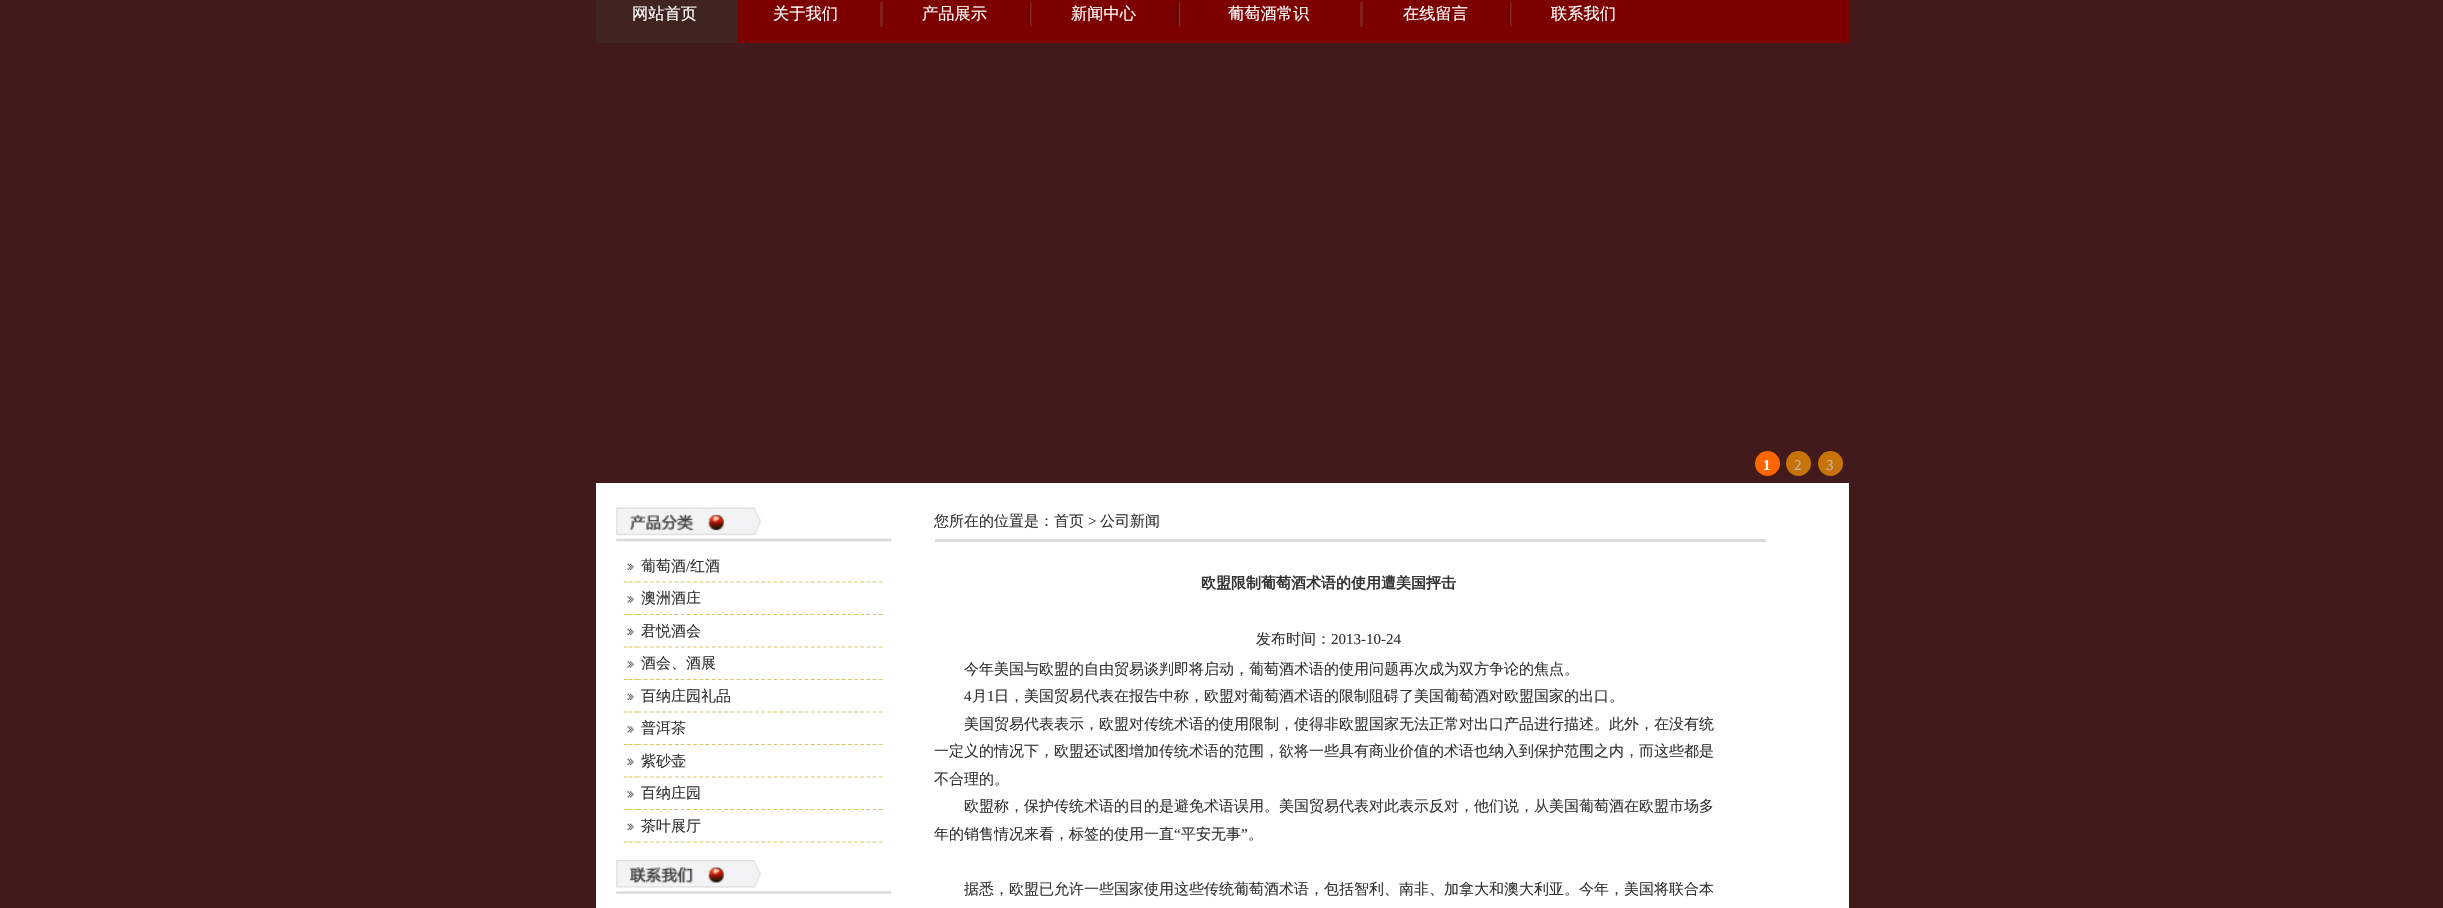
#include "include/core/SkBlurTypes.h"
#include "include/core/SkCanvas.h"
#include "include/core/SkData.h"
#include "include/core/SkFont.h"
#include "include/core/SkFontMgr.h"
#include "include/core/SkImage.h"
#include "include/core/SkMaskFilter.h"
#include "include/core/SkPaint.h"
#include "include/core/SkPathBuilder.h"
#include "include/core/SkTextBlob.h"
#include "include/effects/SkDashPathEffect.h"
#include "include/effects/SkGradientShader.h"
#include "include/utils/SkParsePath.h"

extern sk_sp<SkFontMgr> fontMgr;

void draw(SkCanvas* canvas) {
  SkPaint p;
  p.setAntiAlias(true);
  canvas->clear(SkColorSetRGB(66, 26, 27));
  p.setColor(SkColorSetRGB(125, 0, 0));
  canvas->drawRect(SkRect::MakeLTRB(738, 0, 1849, 43), p);
  p.setColor(SkColorSetRGB(64, 36, 32));
  canvas->drawRect(SkRect::MakeLTRB(596, 0, 738, 43), p);
  p.setColor(SkColorSetRGB(131, 30, 30));
  canvas->drawRect(SkRect::MakeLTRB(880, 2, 883, 27), p);
  canvas->drawImageRect(SkImages::DeferredFromEncodedData(SkData::MakeFromFileName("images/1.png")), SkRect::MakeLTRB(1028, 2, 1032, 27), SkSamplingOptions());
  canvas->drawImageRect(SkImages::DeferredFromEncodedData(SkData::MakeFromFileName("images/2.png")), SkRect::MakeLTRB(1177, 2, 1181, 27), SkSamplingOptions());
  canvas->drawRect(SkRect::MakeLTRB(1360, 2, 1363, 27), p);
  canvas->drawImageRect(SkImages::DeferredFromEncodedData(SkData::MakeFromFileName("images/1.png")), SkRect::MakeLTRB(1508, 2, 1512, 27), SkSamplingOptions());
  p.setColor(SkColorSetRGB(255, 102, 0));
  canvas->drawCircle(1767.5f, 463.5f, 12.5f, p);
  p.setColor(SkColorSetRGB(198, 115, 8));
  canvas->drawCircle(1798.5f, 463.5f, 12.5f, p);
  canvas->drawCircle(1830.5f, 463.5f, 12.5f, p);
  p.setColor(SK_ColorWHITE);
  canvas->drawRect(SkRect::MakeLTRB(596, 483, 1849, 908), p);
  canvas->drawImageRect(SkImages::DeferredFromEncodedData(SkData::MakeFromFileName("images/3.png")), SkRect::MakeLTRB(616, 507, 892, 542), SkSamplingOptions());
  p.setStyle(SkPaint::kStroke_Style);
  p.setStrokeWidth(1.2f);
  p.setColor(SkColorSetRGB(209, 201, 104));
  canvas->drawPath(SkPathBuilder().moveTo(624, 582).lineTo(627.5f, 582).moveTo(628.5f, 582).lineTo(632.5f, 582).moveTo(634, 582).lineTo(637.5f, 582).detach(), p);
  canvas->drawImageRect(SkImages::DeferredFromEncodedData(SkData::MakeFromFileName("images/4.png")), SkRect::MakeLTRB(627, 563, 634, 570), SkSamplingOptions());
  p.setPathEffect(SkDashPathEffect::Make({{3.75f, 2.44f}}, 0));
  canvas->drawPath(SkPathBuilder().moveTo(637.5f, 582).lineTo(882.5f, 582).detach(), p);
  p.setPathEffect(nullptr);
  canvas->drawPath(SkPathBuilder().moveTo(624, 614.5f).lineTo(627.5f, 614.5f).moveTo(628.5f, 614.5f).lineTo(632.5f, 614.5f).moveTo(634, 614.5f).lineTo(637.5f, 614.5f).detach(), p);
  canvas->drawImageRect(SkImages::DeferredFromEncodedData(SkData::MakeFromFileName("images/5.png")), SkRect::MakeLTRB(627, 596, 634, 603), SkSamplingOptions());
  p.setPathEffect(SkDashPathEffect::Make({{3.75f, 2.44f}}, 0));
  canvas->drawPath(SkPathBuilder().moveTo(637.5f, 614.5f).lineTo(882.5f, 614.5f).detach(), p);
  p.setPathEffect(nullptr);
  canvas->drawPath(SkPathBuilder().moveTo(624, 647).lineTo(627.5f, 647).moveTo(628.5f, 647).lineTo(632.5f, 647).moveTo(634, 647).lineTo(637.5f, 647).detach(), p);
  canvas->drawImageRect(SkImages::DeferredFromEncodedData(SkData::MakeFromFileName("images/4.png")), SkRect::MakeLTRB(627, 628, 634, 635), SkSamplingOptions());
  p.setPathEffect(SkDashPathEffect::Make({{3.75f, 2.44f}}, 0));
  canvas->drawPath(SkPathBuilder().moveTo(637.5f, 647).lineTo(882.5f, 647).detach(), p);
  p.setPathEffect(nullptr);
  canvas->drawPath(SkPathBuilder().moveTo(624, 679.5f).lineTo(627.5f, 679.5f).moveTo(628.5f, 679.5f).lineTo(632.5f, 679.5f).moveTo(634, 679.5f).lineTo(637.5f, 679.5f).detach(), p);
  canvas->drawImageRect(SkImages::DeferredFromEncodedData(SkData::MakeFromFileName("images/5.png")), SkRect::MakeLTRB(627, 661, 634, 668), SkSamplingOptions());
  p.setPathEffect(SkDashPathEffect::Make({{3.75f, 2.44f}}, 0));
  canvas->drawPath(SkPathBuilder().moveTo(637.5f, 679.5f).lineTo(882.5f, 679.5f).detach(), p);
  p.setPathEffect(nullptr);
  canvas->drawPath(SkPathBuilder().moveTo(624, 712).lineTo(627.5f, 712).moveTo(628.5f, 712).lineTo(632.5f, 712).moveTo(634, 712).lineTo(637.5f, 712).detach(), p);
  canvas->drawImageRect(SkImages::DeferredFromEncodedData(SkData::MakeFromFileName("images/4.png")), SkRect::MakeLTRB(627, 693, 634, 700), SkSamplingOptions());
  p.setPathEffect(SkDashPathEffect::Make({{3.75f, 2.44f}}, 0));
  canvas->drawPath(SkPathBuilder().moveTo(637.5f, 712).lineTo(882.5f, 712).detach(), p);
  p.setPathEffect(nullptr);
  canvas->drawPath(SkPathBuilder().moveTo(624, 744.5f).lineTo(627.5f, 744.5f).moveTo(628.5f, 744.5f).lineTo(632.5f, 744.5f).moveTo(634, 744.5f).lineTo(637.5f, 744.5f).detach(), p);
  canvas->drawImageRect(SkImages::DeferredFromEncodedData(SkData::MakeFromFileName("images/5.png")), SkRect::MakeLTRB(627, 726, 634, 733), SkSamplingOptions());
  p.setPathEffect(SkDashPathEffect::Make({{3.75f, 2.44f}}, 0));
  canvas->drawPath(SkPathBuilder().moveTo(637.5f, 744.5f).lineTo(882.5f, 744.5f).detach(), p);
  p.setPathEffect(nullptr);
  canvas->drawPath(SkPathBuilder().moveTo(624, 777).lineTo(627.5f, 777).moveTo(628.5f, 777).lineTo(632.5f, 777).moveTo(634, 777).lineTo(637.5f, 777).detach(), p);
  canvas->drawImageRect(SkImages::DeferredFromEncodedData(SkData::MakeFromFileName("images/4.png")), SkRect::MakeLTRB(627, 758, 634, 765), SkSamplingOptions());
  p.setPathEffect(SkDashPathEffect::Make({{3.75f, 2.44f}}, 0));
  canvas->drawPath(SkPathBuilder().moveTo(637.5f, 777).lineTo(882.5f, 777).detach(), p);
  p.setPathEffect(nullptr);
  canvas->drawPath(SkPathBuilder().moveTo(624, 809.5f).lineTo(627.5f, 809.5f).moveTo(628.5f, 809.5f).lineTo(632.5f, 809.5f).moveTo(634, 809.5f).lineTo(637.5f, 809.5f).detach(), p);
  canvas->drawImageRect(SkImages::DeferredFromEncodedData(SkData::MakeFromFileName("images/5.png")), SkRect::MakeLTRB(627, 791, 634, 798), SkSamplingOptions());
  p.setPathEffect(SkDashPathEffect::Make({{3.75f, 2.44f}}, 0));
  canvas->drawPath(SkPathBuilder().moveTo(637.5f, 809.5f).lineTo(882.5f, 809.5f).detach(), p);
  p.setPathEffect(nullptr);
  canvas->drawPath(SkPathBuilder().moveTo(624, 842).lineTo(627.5f, 842).moveTo(628.5f, 842).lineTo(632.5f, 842).moveTo(634, 842).lineTo(637.5f, 842).detach(), p);
  canvas->drawImageRect(SkImages::DeferredFromEncodedData(SkData::MakeFromFileName("images/4.png")), SkRect::MakeLTRB(627, 823, 634, 830), SkSamplingOptions());
  p.setPathEffect(SkDashPathEffect::Make({{3.75f, 2.44f}}, 0));
  canvas->drawPath(SkPathBuilder().moveTo(637.5f, 842).lineTo(882.5f, 842).detach(), p);
  p.setPathEffect(nullptr);
  canvas->drawImageRect(SkImages::DeferredFromEncodedData(SkData::MakeFromFileName("images/6.png")), SkRect::MakeLTRB(616, 860, 892, 894), SkSamplingOptions());
  p.setStyle(SkPaint::kFill_Style);
  p.setColor(SkColorSetRGB(221, 221, 221));
  canvas->drawRect(SkRect::MakeLTRB(935, 539, 1766, 542), p);
  SkFont font1(fontMgr->matchFamilyStyle("WenQuanYi Zen Hei", SkFontStyle(500, SkFontStyle::kNormal_Width, SkFontStyle::kUpright_Slant)), 16.25f);
  font1.setSubpixel(true);
  p.setColor(SK_ColorWHITE);
  canvas->drawString("网站首页", 632, 19, font1, p);
  canvas->drawString("关于我们", 773, 19, font1, p);
  canvas->drawString("产品展示", 922, 19, font1, p);
  canvas->drawString("新闻中心", 1071, 19, font1, p);
  canvas->drawString("葡萄酒常识", 1228, 19, font1, p);
  canvas->drawString("在线留言", 1403, 19, font1, p);
  canvas->drawString("联系我们", 1551, 19, font1, p);
  SkFont font2(fontMgr->matchFamilyStyle("Liberation Serif", SkFontStyle::Bold()), 15);
  font2.setSubpixel(true);
  canvas->drawString("1", 1763, 470, font2, p);
  SkFont font3(fontMgr->matchFamilyStyle("Liberation Serif", SkFontStyle::Normal()), 15);
  font3.setSubpixel(true);
  p.setColor(SkColorSetRGB(198, 186, 187));
  canvas->drawString("2", 1794, 470, font3, p);
  canvas->drawString("3", 1826, 470, font3, p);
  SkFont font4(fontMgr->matchFamilyStyle("WenQuanYi Zen Hei", SkFontStyle(500, SkFontStyle::kNormal_Width, SkFontStyle::kUpright_Slant)), 15);
  font4.setSubpixel(true);
  p.setColor(SkColorSetRGB(51, 51, 51));
  canvas->drawString("葡萄酒", 641, 571, font4, p);
  canvas->drawString("/", 686, 571, font3, p);
  canvas->drawString("红酒", 690, 571, font4, p);
  canvas->drawString("澳洲酒庄", 641, 603, font4, p);
  canvas->drawString("君悦酒会", 641, 636, font4, p);
  canvas->drawString("酒会、酒展", 641, 668, font4, p);
  canvas->drawString("百纳庄园礼品", 641, 701, font4, p);
  canvas->drawString("普洱茶", 641, 733, font4, p);
  canvas->drawString("紫砂壶", 641, 766, font4, p);
  canvas->drawString("百纳庄园", 641, 798, font4, p);
  canvas->drawString("茶叶展厅", 641, 831, font4, p);
  canvas->drawString("您所在的位置是：首页", 934, 526, font4, p);
  canvas->drawString(">", 1088, 526, font3, p);
  canvas->drawString("公司新闻", 1100, 526, font4, p);
  SkFont font5(fontMgr->matchFamilyStyle("WenQuanYi Zen Hei", SkFontStyle::Bold()), 15);
  font5.setSubpixel(true);
  canvas->drawString("欧盟限制葡萄酒术语的使用遭美国抨击", 1201, 588, font5, p);
  canvas->drawString("发布时间：", 1256, 644, font4, p);
  canvas->drawString("2013-10-24", 1331, 644, font3, p);
  canvas->drawString("今年美国与欧盟的自由贸易谈判即将启动，葡萄酒术语的使用问题再次成为双方争论的焦点。", 964, 674, font4, p);
  canvas->drawString("4", 964, 701, font3, p);
  canvas->drawString("月", 972, 701, font4, p);
  canvas->drawString("1", 987, 701, font3, p);
  canvas->drawString("日，美国贸易代表在报告中称，欧盟对葡萄酒术语的限制阻碍了美国葡萄酒对欧盟国家的出口。", 994, 701, font4, p);
  canvas->drawString("美国贸易代表表示，欧盟对传统术语的使用限制，使得非欧盟国家无法正常对出口产品进行描述。此外，在没有统", 964, 729, font4, p);
  canvas->drawString("一定义的情况下，欧盟还试图增加传统术语的范围，欲将一些具有商业价值的术语也纳入到保护范围之内，而这些都是", 934, 756, font4, p);
  canvas->drawString("不合理的。", 934, 784, font4, p);
  canvas->drawString("欧盟称，保护传统术语的目的是避免术语误用。美国贸易代表对此表示反对，他们说，从美国葡萄酒在欧盟市场多", 964, 811, font4, p);
  canvas->drawString("年的销售情况来看，标签的使用一直", 934, 839, font4, p);
  canvas->drawString("“", 1174, 839, font3, p);
  canvas->drawString("平安无事", 1181, 839, font4, p);
  canvas->drawString("”", 1241, 839, font3, p);
  canvas->drawString("。", 1248, 839, font4, p);
  canvas->drawString("据悉，欧盟已允许一些国家使用这些传统葡萄酒术语，包括智利、南非、加拿大和澳大利亚。今年，美国将联合本", 964, 894, font4, p);
}
